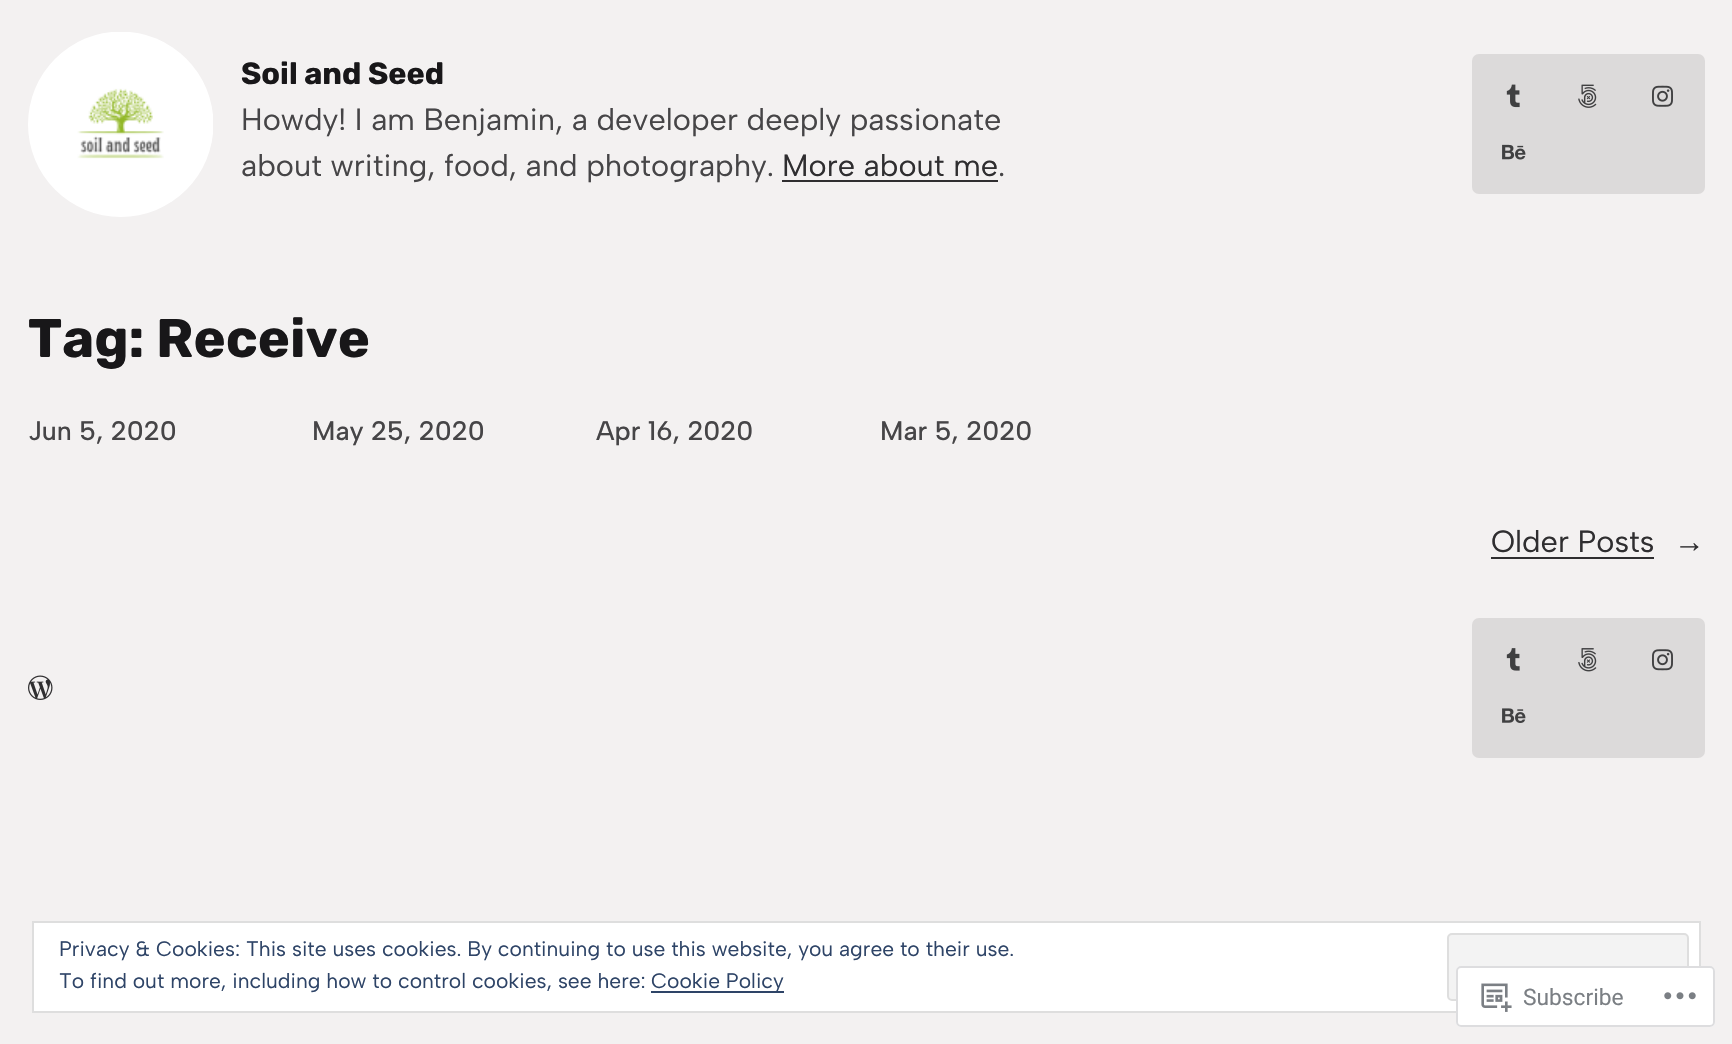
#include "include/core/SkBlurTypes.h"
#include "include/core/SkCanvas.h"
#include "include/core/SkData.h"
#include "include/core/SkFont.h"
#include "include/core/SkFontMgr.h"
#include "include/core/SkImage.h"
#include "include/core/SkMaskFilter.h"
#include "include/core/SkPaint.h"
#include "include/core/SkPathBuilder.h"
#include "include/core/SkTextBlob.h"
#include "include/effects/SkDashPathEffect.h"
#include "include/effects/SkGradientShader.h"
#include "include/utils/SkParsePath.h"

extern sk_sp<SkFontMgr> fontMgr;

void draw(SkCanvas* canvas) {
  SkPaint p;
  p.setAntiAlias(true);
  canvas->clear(SkColorSetRGB(243, 241, 241));
  canvas->drawImageRect(SkImages::DeferredFromEncodedData(SkData::MakeFromFileName("images/1.png")), SkRect::MakeLTRB(28, 32, 213, 217), SkSamplingOptions());
  p.setColor(SkColorSetRGB(47, 46, 48));
  canvas->drawRect(SkRect::MakeLTRB(782, 180, 998, 182), p);
  p.setColor(SkColorSetRGB(220, 218, 218));
  canvas->drawRoundRect(SkRect::MakeLTRB(1472, 54, 1705, 194), 7, 7, p);
  canvas->drawImageRect(SkImages::DeferredFromEncodedData(SkData::MakeFromFileName("images/2.png")), SkRect::MakeLTRB(1506, 84, 1520, 108), SkSamplingOptions());
  canvas->drawImageRect(SkImages::DeferredFromEncodedData(SkData::MakeFromFileName("images/3.png")), SkRect::MakeLTRB(1578, 84, 1597, 108), SkSamplingOptions());
  canvas->drawImageRect(SkImages::DeferredFromEncodedData(SkData::MakeFromFileName("images/4.png")), SkRect::MakeLTRB(1652, 85, 1673, 107), SkSamplingOptions());
  canvas->drawImageRect(SkImages::DeferredFromEncodedData(SkData::MakeFromFileName("images/5.png")), SkRect::MakeLTRB(1502, 144, 1526, 160), SkSamplingOptions());
  p.setColor(SkColorSetRGB(47, 46, 48));
  canvas->drawRect(SkRect::MakeLTRB(1491, 557, 1654, 559), p);
  canvas->drawImageRect(SkImages::DeferredFromEncodedData(SkData::MakeFromFileName("images/6.png")), SkRect::MakeLTRB(28, 675, 53, 700), SkSamplingOptions());
  p.setColor(SkColorSetRGB(220, 218, 218));
  canvas->drawRoundRect(SkRect::MakeLTRB(1472, 618, 1705, 758), 7, 7, p);
  canvas->drawImageRect(SkImages::DeferredFromEncodedData(SkData::MakeFromFileName("images/7.png")), SkRect::MakeLTRB(1506, 648, 1520, 671), SkSamplingOptions());
  canvas->drawImageRect(SkImages::DeferredFromEncodedData(SkData::MakeFromFileName("images/8.png")), SkRect::MakeLTRB(1578, 648, 1597, 672), SkSamplingOptions());
  canvas->drawImageRect(SkImages::DeferredFromEncodedData(SkData::MakeFromFileName("images/9.png")), SkRect::MakeLTRB(1652, 649, 1673, 671), SkSamplingOptions());
  canvas->drawImageRect(SkImages::DeferredFromEncodedData(SkData::MakeFromFileName("images/10.png")), SkRect::MakeLTRB(1502, 708, 1526, 723), SkSamplingOptions());
  p.setColor(SK_ColorWHITE);
  canvas->drawRect(SkRect::MakeLTRB(33, 922, 1700, 1012), p);
  p.setStyle(SkPaint::kStroke_Style);
  p.setStrokeWidth(2);
  p.setColor(SkColorSetRGB(222, 222, 222));
  canvas->drawRect(SkRect::MakeLTRB(33, 922, 1700, 1012), p);
  p.setStyle(SkPaint::kFill_Style);
  p.setColor(SkColorSetRGB(243, 243, 243));
  canvas->drawRoundRect(SkRect::MakeLTRB(1448, 934, 1688, 1000), 4, 4, p);
  p.setStyle(SkPaint::kStroke_Style);
  p.setColor(SkColorSetRGB(222, 222, 222));
  canvas->drawRoundRect(SkRect::MakeLTRB(1448, 934, 1688, 1000), 4, 4, p);
  p.setStyle(SkPaint::kFill_Style);
  p.setColor(SkColorSetRGB(46, 68, 103));
  canvas->drawRect(SkRect::MakeLTRB(651, 991, 784, 993), p);
  p.setColor(SkColorSetARGB(250, 255, 255, 255));
  canvas->drawRoundRect(SkRect::MakeLTRB(1456, 966, 1715, 1027), 5, 5, p);
  p.setStyle(SkPaint::kStroke_Style);
  p.setColor(SkColorSetARGB(250, 220, 220, 222));
  canvas->drawRoundRect(SkRect::MakeLTRB(1457, 967, 1714, 1026), 4, 4, p);
  canvas->drawImageRect(SkImages::DeferredFromEncodedData(SkData::MakeFromFileName("images/11.png")), SkRect::MakeLTRB(1481, 983, 1512, 1012), SkSamplingOptions());
  canvas->drawImageRect(SkImages::DeferredFromEncodedData(SkData::MakeFromFileName("images/12.png")), SkRect::MakeLTRB(1664, 992, 1696, 1000), SkSamplingOptions());
  SkFont font1(fontMgr->matchFamilyStyle("Rubik", SkFontStyle::Bold()), 30.7f);
  font1.setSubpixel(true);
  p.setStyle(SkPaint::kFill_Style);
  p.setColor(SkColorSetRGB(24, 23, 25));
  canvas->drawString("Soil and Seed", 241, 84, font1, p);
  SkFont font2(fontMgr->matchFamilyStyle("Albert Sans", SkFontStyle::Normal()), 30.7f);
  font2.setSubpixel(true);
  p.setColor(SkColorSetRGB(70, 69, 71));
  canvas->drawString("Howdy! I am Benjamin, a developer deeply passionate", 241, 130, font2, p);
  canvas->drawString("about writing, food, and photography.", 241, 176, font2, p);
  p.setColor(SkColorSetRGB(47, 46, 48));
  canvas->drawString("More about me", 782, 176, font2, p);
  p.setColor(SkColorSetRGB(70, 69, 71));
  canvas->drawString(".", 998, 176, font2, p);
  SkFont font3(fontMgr->matchFamilyStyle("Rubik", SkFontStyle::Bold()), 54.25f);
  font3.setSubpixel(true);
  p.setColor(SkColorSetRGB(24, 23, 25));
  canvas->drawString("Tag: Receive", 28, 357, font3, p);
  SkFont font4(fontMgr->matchFamilyStyle("Albert Sans", SkFontStyle(500, SkFontStyle::kNormal_Width, SkFontStyle::kUpright_Slant)), 26.75f);
  font4.setSubpixel(true);
  p.setColor(SkColorSetRGB(70, 69, 71));
  canvas->drawString("Jun 5, 2020", 28, 440, font4, p);
  canvas->drawString("May 25, 2020", 312, 440, font4, p);
  canvas->drawString("Apr 16, 2020", 596, 440, font4, p);
  canvas->drawString("Mar 5, 2020", 880, 440, font4, p);
  p.setColor(SkColorSetRGB(47, 46, 48));
  canvas->drawString("Older Posts", 1491, 552, font2, p);
  SkFont font5(fontMgr->matchFamilyStyle("Liberation Serif", SkFontStyle::Normal()), 30.7f);
  font5.setSubpixel(true);
  canvas->drawString("→", 1674, 552, font5, p);
  SkFont font6(fontMgr->matchFamilyStyle("Albert Sans", SkFontStyle::Normal()), 21);
  font6.setSubpixel(true);
  p.setColor(SkColorSetRGB(46, 68, 103));
  canvas->drawString("Privacy & Cookies: This site uses cookies. By continuing to use this website, you agree to their use.", 59, 956, font6, p);
  canvas->drawString("To find out more, including how to control cookies, see here:", 59, 988, font6, p);
  canvas->drawString("Cookie Policy", 651, 988, font6, p);
  SkFont font7(fontMgr->matchFamilyStyle("Roboto", SkFontStyle::Normal()), 22.75f);
  font7.setSubpixel(true);
  p.setColor(SkColorSetRGB(123, 127, 132));
  canvas->drawString("Subscribe", 1523, 1005, font7, p);
}
